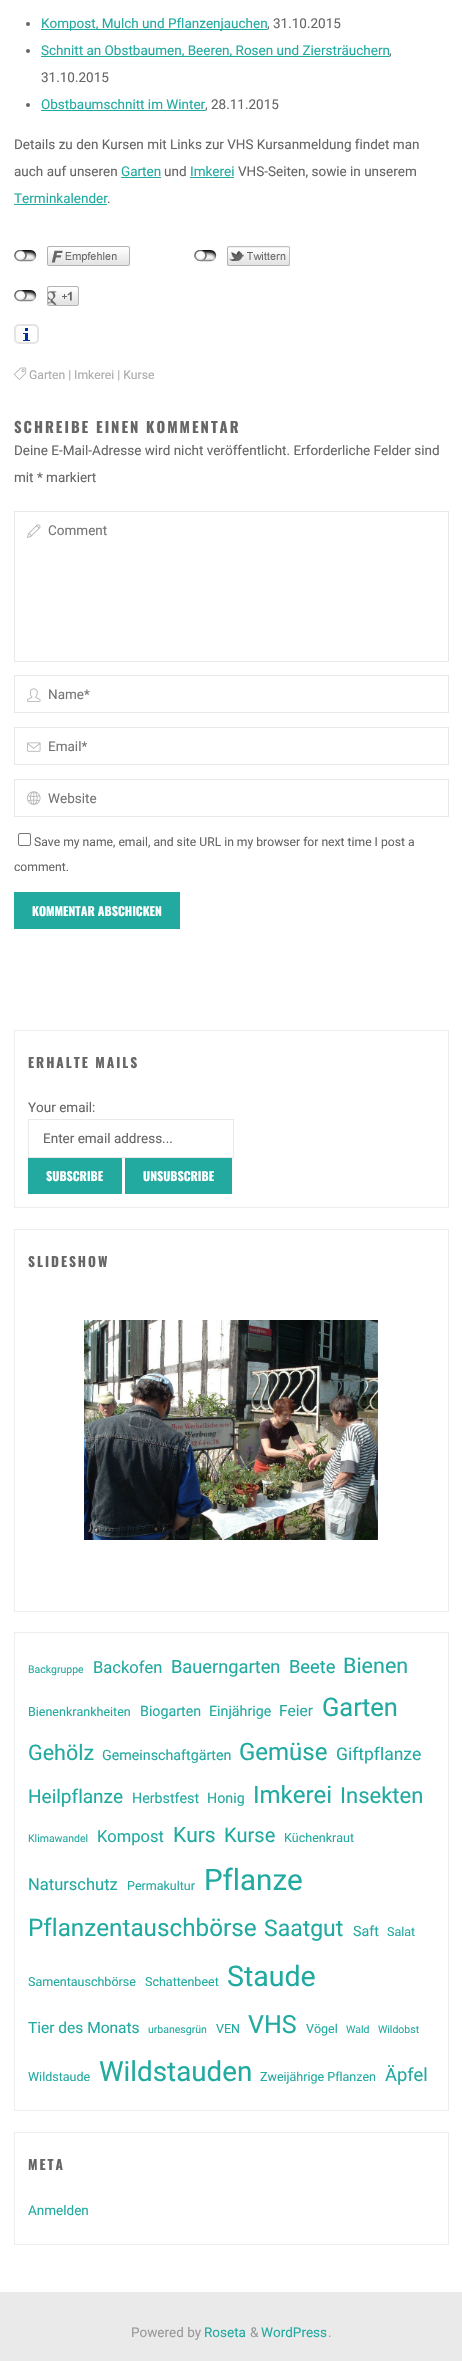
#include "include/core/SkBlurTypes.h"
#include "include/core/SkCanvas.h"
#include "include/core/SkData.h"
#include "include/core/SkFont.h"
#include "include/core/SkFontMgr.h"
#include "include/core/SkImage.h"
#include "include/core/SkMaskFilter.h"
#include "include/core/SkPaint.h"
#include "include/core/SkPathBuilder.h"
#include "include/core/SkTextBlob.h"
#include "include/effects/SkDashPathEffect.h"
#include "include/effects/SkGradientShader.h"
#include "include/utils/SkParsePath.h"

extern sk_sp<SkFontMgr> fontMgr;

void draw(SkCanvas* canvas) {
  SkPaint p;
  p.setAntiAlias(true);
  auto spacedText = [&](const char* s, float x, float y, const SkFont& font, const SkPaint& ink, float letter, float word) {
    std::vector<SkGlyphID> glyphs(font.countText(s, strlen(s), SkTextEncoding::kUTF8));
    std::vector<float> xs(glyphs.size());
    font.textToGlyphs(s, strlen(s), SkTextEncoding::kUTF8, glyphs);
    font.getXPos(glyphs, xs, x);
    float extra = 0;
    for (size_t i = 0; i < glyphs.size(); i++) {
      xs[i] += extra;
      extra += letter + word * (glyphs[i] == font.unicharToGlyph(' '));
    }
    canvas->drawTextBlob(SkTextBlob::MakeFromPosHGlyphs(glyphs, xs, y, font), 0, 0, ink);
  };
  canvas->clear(SK_ColorWHITE);
  p.setColor(SkColorSetRGB(102, 102, 102));
  canvas->drawCircle(28, 24, 2, p);
  p.setColor(SkColorSetRGB(34, 170, 161));
  canvas->drawRect(SkRect::MakeLTRB(41, 29, 267, 30), p);
  p.setColor(SkColorSetRGB(102, 102, 102));
  canvas->drawCircle(28, 51, 2, p);
  p.setColor(SkColorSetRGB(34, 170, 161));
  canvas->drawRect(SkRect::MakeLTRB(41, 56, 389, 57), p);
  p.setColor(SkColorSetRGB(102, 102, 102));
  canvas->drawCircle(28, 105, 2, p);
  p.setColor(SkColorSetRGB(34, 170, 161));
  canvas->drawRect(SkRect::MakeLTRB(41, 110, 205, 111), p);
  canvas->drawRect(SkRect::MakeLTRB(121, 177, 161, 178), p);
  canvas->drawRect(SkRect::MakeLTRB(190, 177, 234, 178), p);
  canvas->drawRect(SkRect::MakeLTRB(14, 204, 107, 205), p);
  canvas->drawImageRect(SkImages::DeferredFromEncodedData(SkData::MakeFromFileName("images/1.png")), SkRect::MakeLTRB(14, 250, 37, 262), SkSamplingOptions());
  canvas->drawImageRect(SkImages::DeferredFromEncodedData(SkData::MakeFromFileName("images/2.png")), SkRect::MakeLTRB(47, 246, 130, 266), SkSamplingOptions());
  canvas->drawImageRect(SkImages::DeferredFromEncodedData(SkData::MakeFromFileName("images/1.png")), SkRect::MakeLTRB(194, 250, 217, 262), SkSamplingOptions());
  canvas->drawImageRect(SkImages::DeferredFromEncodedData(SkData::MakeFromFileName("images/3.png")), SkRect::MakeLTRB(227, 246, 290, 266), SkSamplingOptions());
  canvas->drawImageRect(SkImages::DeferredFromEncodedData(SkData::MakeFromFileName("images/1.png")), SkRect::MakeLTRB(14, 290, 37, 302), SkSamplingOptions());
  canvas->drawImageRect(SkImages::DeferredFromEncodedData(SkData::MakeFromFileName("images/4.png")), SkRect::MakeLTRB(47, 286, 79, 306), SkSamplingOptions());
  canvas->drawImageRect(SkImages::DeferredFromEncodedData(SkData::MakeFromFileName("images/5.png")), SkRect::MakeLTRB(23, 328, 30, 341), SkSamplingOptions());
  p.setStyle(SkPaint::kStroke_Style);
  p.setStrokeWidth(2);
  p.setColor(SkColorSetRGB(231, 227, 227));
  canvas->drawRoundRect(SkRect::MakeLTRB(15, 325, 38, 343), 4, 4, p);
  canvas->drawImageRect(SkImages::DeferredFromEncodedData(SkData::MakeFromFileName("images/6.png")), SkRect::MakeLTRB(14, 367, 27, 380), SkSamplingOptions());
  p.setStrokeWidth(1);
  p.setColor(SkColorSetRGB(233, 233, 233));
  canvas->drawRect(SkRect::MakeLTRB(14.5f, 511.5f, 448.5f, 661.5f), p);
  canvas->drawImageRect(SkImages::DeferredFromEncodedData(SkData::MakeFromFileName("images/7.png")), SkRect::MakeLTRB(27, 524, 41, 538), SkSamplingOptions());
  canvas->drawRect(SkRect::MakeLTRB(14.5f, 675.5f, 448.5f, 712.5f), p);
  canvas->drawImageRect(SkImages::DeferredFromEncodedData(SkData::MakeFromFileName("images/8.png")), SkRect::MakeLTRB(27, 688, 41, 702), SkSamplingOptions());
  canvas->drawRect(SkRect::MakeLTRB(14.5f, 727.5f, 448.5f, 764.5f), p);
  canvas->drawImageRect(SkImages::DeferredFromEncodedData(SkData::MakeFromFileName("images/9.png")), SkRect::MakeLTRB(27, 742, 41, 752), SkSamplingOptions());
  canvas->drawRect(SkRect::MakeLTRB(14.5f, 779.5f, 448.5f, 816.5f), p);
  canvas->drawImageRect(SkImages::DeferredFromEncodedData(SkData::MakeFromFileName("images/10.png")), SkRect::MakeLTRB(27, 791, 41, 805), SkSamplingOptions());
  p.setColor(SkColorSetRGB(118, 118, 118));
  canvas->drawRoundRect(SkRect::MakeLTRB(18.5f, 833.5f, 30.5f, 845.5f), 1.5f, 1.5f, p);
  p.setStyle(SkPaint::kFill_Style);
  p.setColor(SkColorSetRGB(34, 170, 161));
  canvas->drawRect(SkRect::MakeLTRB(14, 892, 180, 929), p);
  p.setStyle(SkPaint::kStroke_Style);
  p.setColor(SkColorSetRGB(238, 238, 238));
  canvas->drawRect(SkRect::MakeLTRB(14.5f, 1030.5f, 448.5f, 1207.5f), p);
  p.setColor(SkColorSetRGB(233, 233, 233));
  canvas->drawRect(SkRect::MakeLTRB(28.5f, 1119.5f, 233.5f, 1157.5f), p);
  p.setStyle(SkPaint::kFill_Style);
  p.setColor(SkColorSetRGB(34, 170, 161));
  canvas->drawRect(SkRect::MakeLTRB(28, 1158, 122, 1194), p);
  canvas->drawRect(SkRect::MakeLTRB(125, 1158, 232, 1194), p);
  p.setStyle(SkPaint::kStroke_Style);
  p.setColor(SkColorSetRGB(238, 238, 238));
  canvas->drawRect(SkRect::MakeLTRB(14.5f, 1229.5f, 448.5f, 1611.5f), p);
  canvas->drawImageRect(SkImages::DeferredFromEncodedData(SkData::MakeFromFileName("images/11.png")), SkRect::MakeLTRB(84, 1320, 378, 1540), SkSamplingOptions());
  canvas->drawRect(SkRect::MakeLTRB(14.5f, 1632.5f, 448.5f, 2110.5f), p);
  canvas->drawRect(SkRect::MakeLTRB(14.5f, 2132.5f, 448.5f, 2244.5f), p);
  p.setStyle(SkPaint::kFill_Style);
  p.setColor(SkColorSetRGB(234, 234, 234));
  canvas->drawRect(SkRect::MakeLTRB(0, 2292, 462, 2361), p);
  SkFont font1(fontMgr->matchFamilyStyle("Roboto", SkFontStyle::Normal()), 13.5f);
  font1.setSubpixel(true);
  p.setColor(SkColorSetRGB(34, 170, 161));
  canvas->drawString("Kompost, Mulch und Pflanzenjauchen", 41, 28, font1, p);
  p.setColor(SkColorSetRGB(102, 102, 102));
  canvas->drawString(", 31.10.2015", 267, 28, font1, p);
  p.setColor(SkColorSetRGB(34, 170, 161));
  canvas->drawString("Schnitt an Obstbaumen, Beeren, Rosen und Ziersträuchern", 41, 55, font1, p);
  p.setColor(SkColorSetRGB(102, 102, 102));
  canvas->drawString(",", 389, 55, font1, p);
  canvas->drawString("31.10.2015", 41, 82, font1, p);
  p.setColor(SkColorSetRGB(34, 170, 161));
  canvas->drawString("Obstbaumschnitt im Winter", 41, 109, font1, p);
  p.setColor(SkColorSetRGB(102, 102, 102));
  canvas->drawString(", 28.11.2015", 205, 109, font1, p);
  canvas->drawString("Details zu den Kursen mit Links zur VHS Kursanmeldung findet man", 14, 149, font1, p);
  canvas->drawString("auch auf unseren", 14, 176, font1, p);
  p.setColor(SkColorSetRGB(34, 170, 161));
  canvas->drawString("Garten", 121, 176, font1, p);
  p.setColor(SkColorSetRGB(102, 102, 102));
  canvas->drawString("und", 164, 176, font1, p);
  p.setColor(SkColorSetRGB(34, 170, 161));
  canvas->drawString("Imkerei", 190, 176, font1, p);
  p.setColor(SkColorSetRGB(102, 102, 102));
  canvas->drawString("VHS-Seiten, sowie in unserem", 238, 176, font1, p);
  p.setColor(SkColorSetRGB(34, 170, 161));
  canvas->drawString("Terminkalender", 14, 203, font1, p);
  p.setColor(SkColorSetRGB(102, 102, 102));
  canvas->drawString(".", 107, 203, font1, p);
  SkFont font2(fontMgr->matchFamilyStyle("Roboto", SkFontStyle::Normal()), 12.15f);
  font2.setSubpixel(true);
  p.setColor(SkColorSetRGB(171, 171, 171));
  canvas->drawString("Garten | Imkerei | Kurse", 29, 379, font2, p);
  SkFont font3(fontMgr->matchFamilyStyle("Oswald", SkFontStyle::Bold()), 14.8f);
  font3.setSubpixel(true);
  p.setColor(SkColorSetRGB(102, 102, 102));
  spacedText("SCHREIBE EINEN KOMMENTAR", 14, 433, font3, p, 2, 0);
  canvas->drawString("Deine E-Mail-Adresse wird nicht veröffentlicht. Erforderliche Felder sind", 14, 455, font1, p);
  canvas->drawString("mit * markiert", 14, 482, font1, p);
  p.setColor(SkColorSetRGB(117, 117, 117));
  canvas->drawString("Comment", 48, 535, font1, p);
  canvas->drawString("Name*", 48, 699, font1, p);
  canvas->drawString("Email*", 48, 751, font1, p);
  canvas->drawString("Website", 48, 803, font1, p);
  p.setColor(SkColorSetRGB(102, 102, 102));
  canvas->drawString("Save my name, email, and site URL in my browser for next time I post a", 34, 846, font2, p);
  canvas->drawString("comment.", 14, 871, font2, p);
  SkFont font4(fontMgr->matchFamilyStyle("Oswald", SkFontStyle::Bold()), 12.15f);
  font4.setSubpixel(true);
  p.setColor(SK_ColorWHITE);
  canvas->drawString("KOMMENTAR ABSCHICKEN", 32, 916, font4, p);
  SkFont font5(fontMgr->matchFamilyStyle("Oswald", SkFontStyle::Bold()), 13.5f);
  font5.setSubpixel(true);
  p.setColor(SkColorSetRGB(102, 102, 102));
  spacedText("ERHALTE MAILS", 28, 1068, font5, p, 2, 0);
  canvas->drawString("Your email:", 28, 1112, font1, p);
  canvas->drawString("Enter email address...", 43, 1143, font1, p);
  p.setColor(SK_ColorWHITE);
  canvas->drawString("SUBSCRIBE", 46, 1181, font4, p);
  canvas->drawString("UNSUBSCRIBE", 143, 1181, font4, p);
  p.setColor(SkColorSetRGB(102, 102, 102));
  spacedText("SLIDESHOW", 28, 1267, font5, p, 2, 0);
  SkFont font6(fontMgr->matchFamilyStyle("Roboto", SkFontStyle::Normal()), 10.5f);
  font6.setSubpixel(true);
  p.setColor(SkColorSetRGB(34, 170, 161));
  canvas->drawString("Backgruppe", 28, 1673, font6, p);
  SkFont font7(fontMgr->matchFamilyStyle("Roboto", SkFontStyle::Normal()), 16.5f);
  font7.setSubpixel(true);
  canvas->drawString("Backofen", 93, 1673, font7, p);
  SkFont font8(fontMgr->matchFamilyStyle("Roboto", SkFontStyle::Normal()), 18.25f);
  font8.setSubpixel(true);
  canvas->drawString("Bauerngarten", 171, 1673, font8, p);
  canvas->drawString("Beete", 289, 1673, font8, p);
  SkFont font9(fontMgr->matchFamilyStyle("Roboto", SkFontStyle::Normal()), 21.5f);
  font9.setSubpixel(true);
  canvas->drawString("Bienen", 343, 1673, font9, p);
  SkFont font10(fontMgr->matchFamilyStyle("Roboto", SkFontStyle::Normal()), 12.5f);
  font10.setSubpixel(true);
  canvas->drawString("Bienenkrankheiten", 28, 1716, font10, p);
  SkFont font11(fontMgr->matchFamilyStyle("Roboto", SkFontStyle::Normal()), 14.25f);
  font11.setSubpixel(true);
  canvas->drawString("Biogarten", 140, 1716, font11, p);
  canvas->drawString("Einjährige", 209, 1716, font11, p);
  SkFont font12(fontMgr->matchFamilyStyle("Roboto", SkFontStyle::Normal()), 15.5f);
  font12.setSubpixel(true);
  canvas->drawString("Feier", 279, 1716, font12, p);
  SkFont font13(fontMgr->matchFamilyStyle("Roboto", SkFontStyle::Normal()), 25.5f);
  font13.setSubpixel(true);
  canvas->drawString("Garten", 322, 1716, font13, p);
  canvas->drawString("Gehölz", 28, 1760, font9, p);
  canvas->drawString("Gemeinschaftgärten", 102, 1760, font11, p);
  SkFont font14(fontMgr->matchFamilyStyle("Roboto", SkFontStyle::Normal()), 24);
  font14.setSubpixel(true);
  canvas->drawString("Gemüse", 239, 1760, font14, p);
  SkFont font15(fontMgr->matchFamilyStyle("Roboto", SkFontStyle::Normal()), 17.5f);
  font15.setSubpixel(true);
  canvas->drawString("Giftpflanze", 336, 1760, font15, p);
  SkFont font16(fontMgr->matchFamilyStyle("Roboto", SkFontStyle::Normal()), 19);
  font16.setSubpixel(true);
  canvas->drawString("Heilpflanze", 28, 1803, font16, p);
  canvas->drawString("Herbstfest", 132, 1803, font11, p);
  canvas->drawString("Honig", 207, 1803, font11, p);
  canvas->drawString("Imkerei", 253, 1803, font14, p);
  SkFont font17(fontMgr->matchFamilyStyle("Roboto", SkFontStyle::Normal()), 22);
  font17.setSubpixel(true);
  canvas->drawString("Insekten", 340, 1803, font17, p);
  canvas->drawString("Klimawandel", 28, 1842, font6, p);
  canvas->drawString("Kompost", 97, 1842, font7, p);
  SkFont font18(fontMgr->matchFamilyStyle("Roboto", SkFontStyle::Normal()), 21);
  font18.setSubpixel(true);
  canvas->drawString("Kurs", 173, 1842, font18, p);
  SkFont font19(fontMgr->matchFamilyStyle("Roboto", SkFontStyle::Normal()), 20);
  font19.setSubpixel(true);
  canvas->drawString("Kurse", 224, 1842, font19, p);
  canvas->drawString("Küchenkraut", 284, 1842, font10, p);
  canvas->drawString("Naturschutz", 28, 1890, font7, p);
  canvas->drawString("Permakultur", 127, 1890, font10, p);
  SkFont font20(fontMgr->matchFamilyStyle("Roboto", SkFontStyle::Normal()), 29.5f);
  font20.setSubpixel(true);
  canvas->drawString("Pflanze", 204, 1890, font20, p);
  SkFont font21(fontMgr->matchFamilyStyle("Roboto", SkFontStyle::Normal()), 24.25f);
  font21.setSubpixel(true);
  canvas->drawString("Pflanzentauschbörse", 28, 1936, font21, p);
  SkFont font22(fontMgr->matchFamilyStyle("Roboto", SkFontStyle::Normal()), 23);
  font22.setSubpixel(true);
  canvas->drawString("Saatgut", 264, 1936, font22, p);
  canvas->drawString("Saft", 353, 1936, font11, p);
  canvas->drawString("Salat", 387, 1936, font10, p);
  canvas->drawString("Samentauschbörse", 28, 1986, font10, p);
  canvas->drawString("Schattenbeet", 145, 1986, font10, p);
  SkFont font23(fontMgr->matchFamilyStyle("Roboto", SkFontStyle::Normal()), 28.5f);
  font23.setSubpixel(true);
  canvas->drawString("Staude", 227, 1986, font23, p);
  canvas->drawString("Tier des Monats", 28, 2033, font12, p);
  canvas->drawString("urbanesgrün", 148, 2033, font6, p);
  canvas->drawString("VEN", 216, 2033, font10, p);
  SkFont font24(fontMgr->matchFamilyStyle("Roboto", SkFontStyle::Normal()), 25);
  font24.setSubpixel(true);
  canvas->drawString("VHS", 248, 2033, font24, p);
  canvas->drawString("Vögel", 306, 2033, font10, p);
  canvas->drawString("Wald", 346, 2033, font6, p);
  canvas->drawString("Wildobst", 378, 2033, font6, p);
  canvas->drawString("Wildstaude", 28, 2081, font10, p);
  SkFont font25(fontMgr->matchFamilyStyle("Roboto", SkFontStyle::Normal()), 27.75f);
  font25.setSubpixel(true);
  canvas->drawString("Wildstauden", 99, 2081, font25, p);
  canvas->drawString("Zweijährige Pflanzen", 260, 2081, font10, p);
  canvas->drawString("Äpfel", 385, 2081, font8, p);
  p.setColor(SkColorSetRGB(102, 102, 102));
  spacedText("META", 28, 2170, font5, p, 2, 0);
  p.setColor(SkColorSetRGB(34, 170, 161));
  canvas->drawString("Anmelden", 28, 2215, font1, p);
  p.setColor(SkColorSetRGB(153, 153, 153));
  canvas->drawString("Powered by", 131, 2337, font1, p);
  p.setColor(SkColorSetRGB(34, 170, 161));
  canvas->drawString("Roseta", 204, 2337, font1, p);
  p.setColor(SkColorSetRGB(153, 153, 153));
  canvas->drawString("&", 250, 2337, font1, p);
  p.setColor(SkColorSetRGB(34, 170, 161));
  canvas->drawString("WordPress", 261, 2337, font1, p);
  p.setColor(SkColorSetRGB(153, 153, 153));
  canvas->drawString(".", 328, 2337, font1, p);
}
